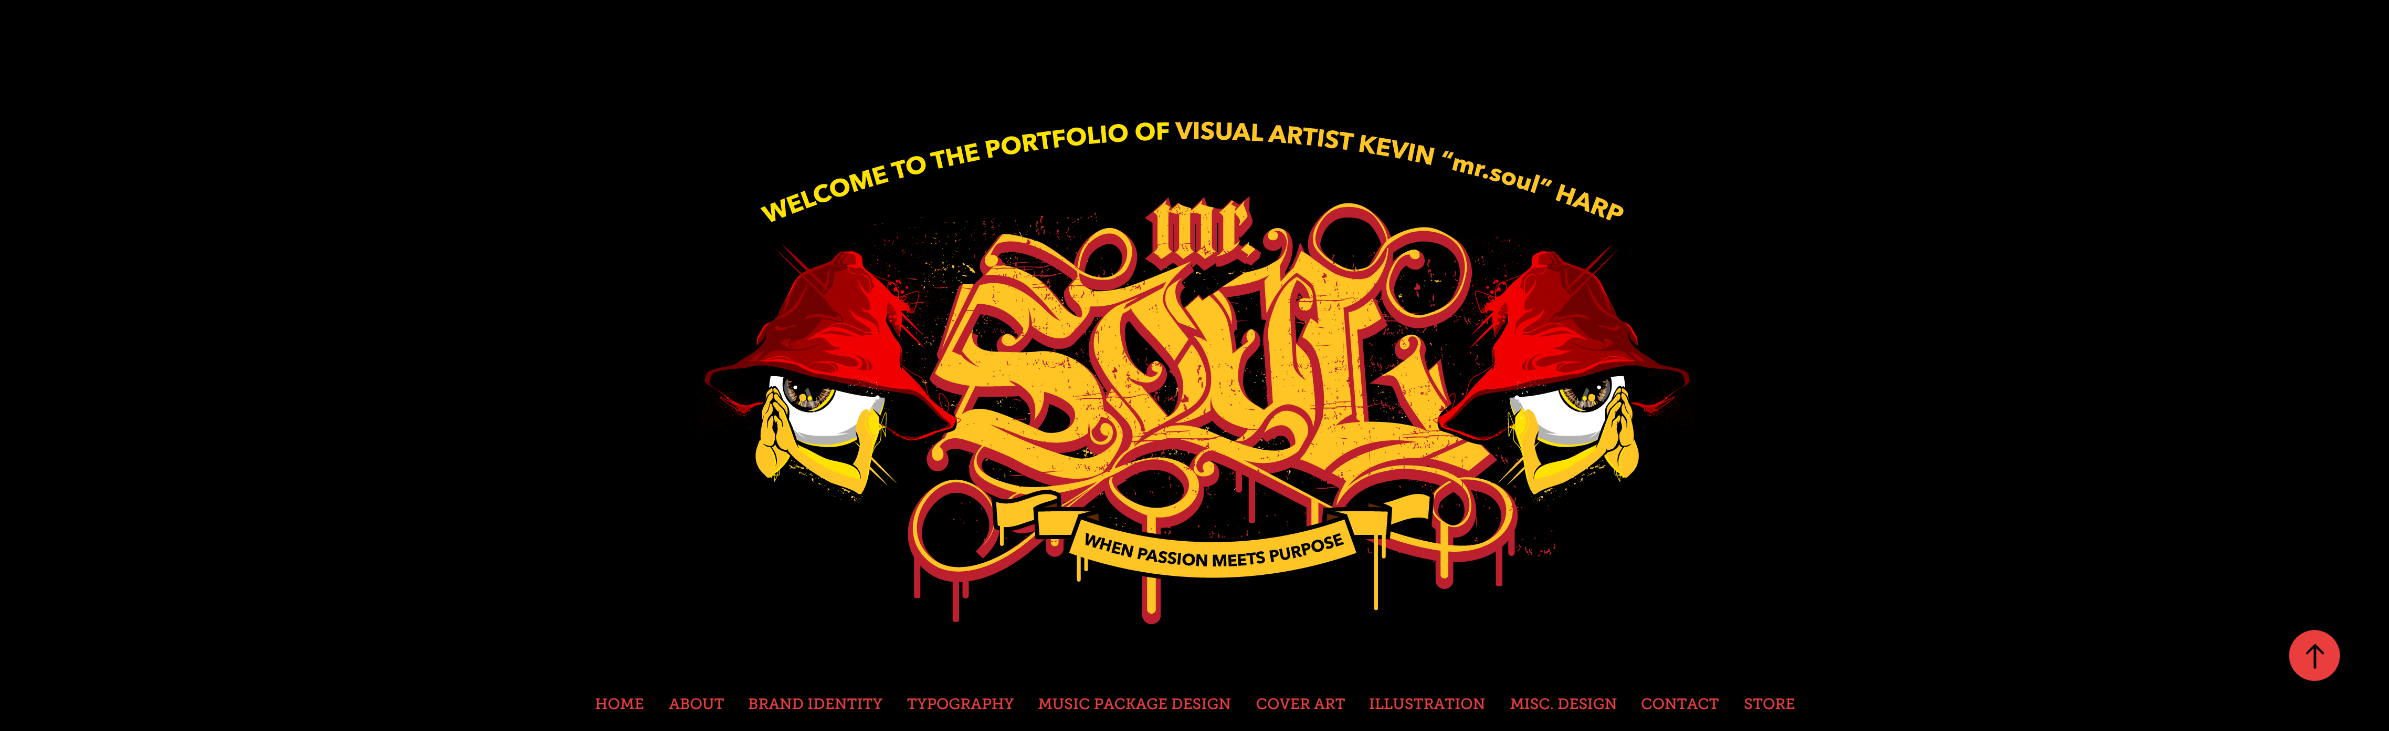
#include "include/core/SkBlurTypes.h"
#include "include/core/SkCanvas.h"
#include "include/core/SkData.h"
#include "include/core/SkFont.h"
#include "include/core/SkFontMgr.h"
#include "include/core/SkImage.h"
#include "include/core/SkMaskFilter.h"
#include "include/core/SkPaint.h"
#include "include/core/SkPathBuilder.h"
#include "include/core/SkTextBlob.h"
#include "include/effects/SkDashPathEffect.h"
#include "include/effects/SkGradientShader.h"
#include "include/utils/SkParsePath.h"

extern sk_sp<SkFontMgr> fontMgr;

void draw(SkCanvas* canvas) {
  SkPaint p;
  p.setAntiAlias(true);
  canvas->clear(SK_ColorBLACK);
  p.setColor(SkColorSetRGB(234, 61, 61));
  canvas->drawCircle(2314.5f, 655.5f, 25.5f, p);
  canvas->drawImageRect(SkImages::DeferredFromEncodedData(SkData::MakeFromFileName("images/1.png")), SkRect::MakeLTRB(2306, 644, 2324, 669), SkSamplingOptions());
  canvas->drawImageRect(SkImages::DeferredFromEncodedData(SkData::MakeFromFileName("images/2.png")), SkRect::MakeLTRB(695, 121, 1695, 624), SkSamplingOptions());
  SkFont font1(fontMgr->matchFamilyStyle("Museo Slab", SkFontStyle::Normal()), 15);
  font1.setSubpixel(true);
  canvas->drawString("HOME", 595, 709, font1, p);
  canvas->drawString("ABOUT", 669, 709, font1, p);
  canvas->drawString("BRAND IDENTITY", 748, 709, font1, p);
  canvas->drawString("TYPOGRAPHY", 907, 709, font1, p);
  canvas->drawString("MUSIC PACKAGE DESIGN", 1038, 709, font1, p);
  canvas->drawString("COVER ART", 1256, 709, font1, p);
  canvas->drawString("ILLUSTRATION", 1369, 709, font1, p);
  canvas->drawString("MISC. DESIGN", 1510, 709, font1, p);
  canvas->drawString("CONTACT", 1641, 709, font1, p);
  canvas->drawString("STORE", 1744, 709, font1, p);
}
